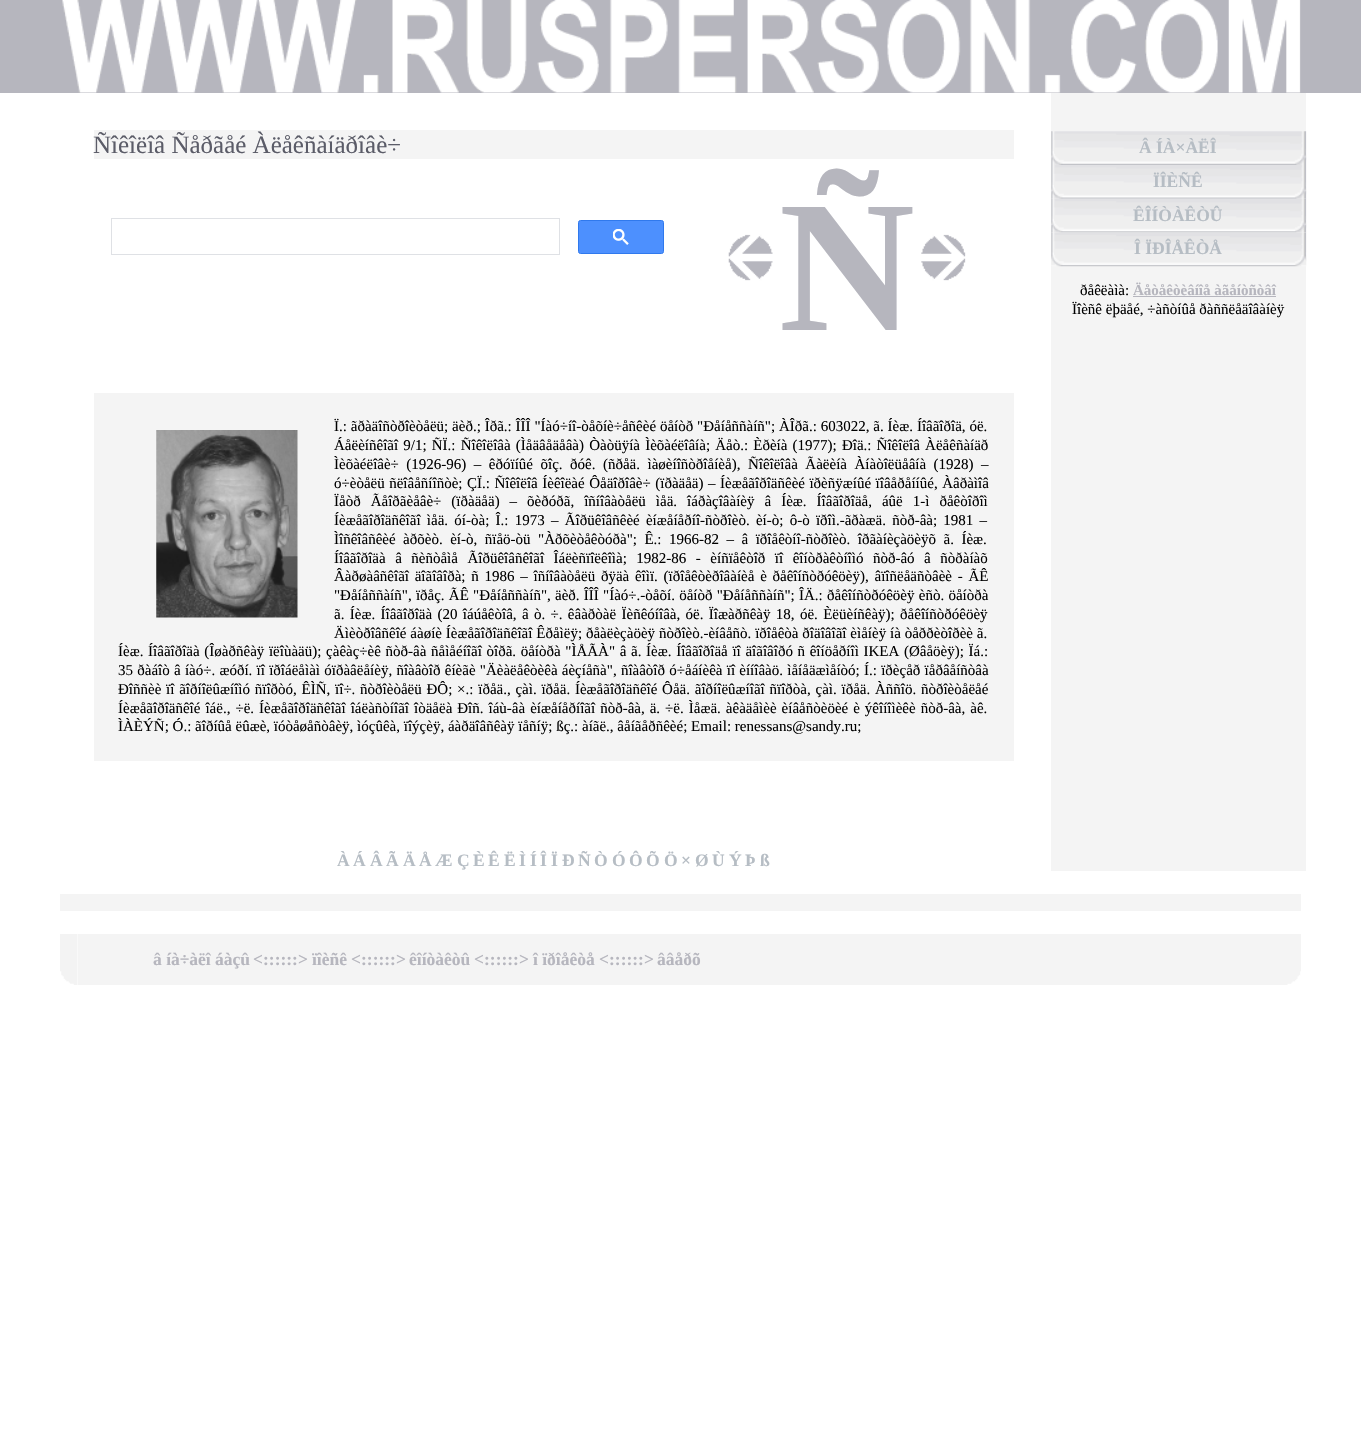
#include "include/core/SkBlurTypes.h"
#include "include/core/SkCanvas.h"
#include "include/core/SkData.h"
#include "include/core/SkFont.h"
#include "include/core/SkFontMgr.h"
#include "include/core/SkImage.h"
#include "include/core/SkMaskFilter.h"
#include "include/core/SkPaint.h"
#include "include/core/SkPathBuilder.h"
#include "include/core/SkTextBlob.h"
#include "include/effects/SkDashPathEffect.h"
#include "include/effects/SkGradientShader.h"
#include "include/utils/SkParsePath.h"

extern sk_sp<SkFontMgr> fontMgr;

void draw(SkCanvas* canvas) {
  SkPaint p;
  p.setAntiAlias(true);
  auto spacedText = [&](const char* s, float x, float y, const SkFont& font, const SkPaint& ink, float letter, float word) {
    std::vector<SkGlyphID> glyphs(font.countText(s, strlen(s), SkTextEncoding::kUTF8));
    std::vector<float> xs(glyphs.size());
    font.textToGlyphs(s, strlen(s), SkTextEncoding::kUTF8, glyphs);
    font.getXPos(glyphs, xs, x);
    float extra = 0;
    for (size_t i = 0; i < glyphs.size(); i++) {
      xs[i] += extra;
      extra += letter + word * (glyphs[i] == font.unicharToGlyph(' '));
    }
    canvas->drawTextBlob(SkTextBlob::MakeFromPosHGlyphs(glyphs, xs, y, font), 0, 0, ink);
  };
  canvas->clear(SK_ColorWHITE);
  p.setColor(SkColorSetRGB(182, 182, 190));
  canvas->drawRect(SkRect::MakeLTRB(0, 0, 1361, 93), p);
  canvas->drawImageRect(SkImages::DeferredFromEncodedData(SkData::MakeFromFileName("images/1.png")), SkRect::MakeLTRB(62, 0, 1301, 93), SkSamplingOptions());
  p.setColor(SkColorSetRGB(244, 244, 244));
  canvas->drawRect(SkRect::MakeLTRB(94, 130, 1014, 159), p);
  p.setStyle(SkPaint::kStroke_Style);
  p.setStrokeWidth(1);
  p.setColor(SkColorSetRGB(223, 225, 229));
  canvas->drawRect(SkRect::MakeLTRB(111.5f, 218.5f, 559.5f, 254.5f), p);
  p.setStyle(SkPaint::kFill_Style);
  p.setColor(SkColorSetRGB(77, 144, 254));
  canvas->drawRoundRect(SkRect::MakeLTRB(578.5f, 220.5f, 663.5f, 253.5f), 2, 2, p);
  p.setStyle(SkPaint::kStroke_Style);
  p.setColor(SkColorSetRGB(48, 121, 237));
  canvas->drawRoundRect(SkRect::MakeLTRB(578.5f, 220.5f, 663.5f, 253.5f), 2, 2, p);
  canvas->drawImageRect(SkImages::DeferredFromEncodedData(SkData::MakeFromFileName("images/2.png")), SkRect::MakeLTRB(613, 229, 629, 245), SkSamplingOptions());
  canvas->drawImageRect(SkImages::DeferredFromEncodedData(SkData::MakeFromFileName("images/3.png")), SkRect::MakeLTRB(728, 234, 773, 281), SkSamplingOptions());
  canvas->drawImageRect(SkImages::DeferredFromEncodedData(SkData::MakeFromFileName("images/4.png")), SkRect::MakeLTRB(921, 234, 966, 281), SkSamplingOptions());
  p.setStyle(SkPaint::kFill_Style);
  p.setColor(SkColorSetRGB(244, 244, 244));
  canvas->drawRect(SkRect::MakeLTRB(94, 393, 1014, 761), p);
  canvas->drawImageRect(SkImages::DeferredFromEncodedData(SkData::MakeFromFileName("images/5.png")), SkRect::MakeLTRB(156, 430, 298, 618), SkSamplingOptions());
  canvas->drawRect(SkRect::MakeLTRB(1051, 93, 1306, 871), p);
  canvas->drawImageRect(SkImages::DeferredFromEncodedData(SkData::MakeFromFileName("images/6.png")), SkRect::MakeLTRB(1051, 131, 1307, 165), SkSamplingOptions());
  canvas->drawImageRect(SkImages::DeferredFromEncodedData(SkData::MakeFromFileName("images/7.png")), SkRect::MakeLTRB(1051, 165, 1307, 199), SkSamplingOptions());
  canvas->drawImageRect(SkImages::DeferredFromEncodedData(SkData::MakeFromFileName("images/8.png")), SkRect::MakeLTRB(1051, 198, 1307, 233), SkSamplingOptions());
  canvas->drawImageRect(SkImages::DeferredFromEncodedData(SkData::MakeFromFileName("images/9.png")), SkRect::MakeLTRB(1051, 232, 1307, 267), SkSamplingOptions());
  p.setColor(SkColorSetRGB(182, 182, 190));
  canvas->drawRect(SkRect::MakeLTRB(1133, 296, 1276, 297), p);
  p.setColor(SkColorSetRGB(244, 244, 244));
  canvas->drawRect(SkRect::MakeLTRB(60, 894, 1301, 911), p);
  canvas->drawImageRect(SkImages::DeferredFromEncodedData(SkData::MakeFromFileName("images/10.png")), SkRect::MakeLTRB(60, 934, 78, 985), SkSamplingOptions());
  canvas->drawRect(SkRect::MakeLTRB(78, 934, 1284, 985), p);
  canvas->drawImageRect(SkImages::DeferredFromEncodedData(SkData::MakeFromFileName("images/11.png")), SkRect::MakeLTRB(1284, 934, 1301, 985), SkSamplingOptions());
  SkFont font1(fontMgr->matchFamilyStyle("Liberation Serif", SkFontStyle::Normal()), 25);
  font1.setSubpixel(true);
  p.setColor(SkColorSetRGB(91, 92, 104));
  canvas->drawString("Ñîêîëîâ Ñåðãåé Àëåêñàíäðîâè÷", 93, 153, font1, p);
  SkFont font2(fontMgr->matchFamilyStyle("Liberation Serif", SkFontStyle::Bold()), 188);
  font2.setSubpixel(true);
  p.setColor(SkColorSetRGB(182, 182, 190));
  canvas->drawString("Ñ", 779, 330, font2, p);
  SkFont font3(fontMgr->matchFamilyStyle("Liberation Serif", SkFontStyle::Normal()), 15);
  font3.setSubpixel(true);
  p.setColor(SK_ColorBLACK);
  spacedText("Ï.: ãðàäîñòðîèòåëü; äèð.; Îðã.: ÎÎÎ \"Íàó÷íî-òåõíè÷åñêèé öåíòð \"Ðåíåññàíñ\"; ÀÎðã.: 603022, ã. Íèæ. Íîâãîðîä, óë.", 334, 431, font3, p, 0, 0.1f);
  spacedText("Áåëèíñêîãî 9/1; ÑÏ.: Ñîêîëîâà (Ìåäâåäåâà) Òàòüÿíà Ìèõàéëîâíà; Äåò.: Èðèíà (1977); Ðîä.: Ñîêîëîâ Àëåêñàíäð", 334, 450, font3, p, 0, 1.4f);
  spacedText("Ìèõàéëîâè÷ (1926-96) – êðóïíûé õîç. ðóê. (ñðåä. ìàøèíîñòðîåíèå), Ñîêîëîâà Ãàëèíà Àíàòîëüåâíà (1928) –", 334, 469, font3, p, 0, 3.75f);
  spacedText("ó÷èòåëü ñëîâåñíîñòè; ÇÏ.: Ñîêîëîâ Íèêîëàé Ôåäîðîâè÷ (ïðàäåä) – Íèæåãîðîäñêèé ïðèñÿæíûé ïîâåðåííûé, Àâðàìîâ", 334, 488, font3, p, 0, 0.75f);
  spacedText("Ïåòð Ãåîðãèåâè÷ (ïðàäåä) – õèðóðã, îñíîâàòåëü ìåä. îáðàçîâàíèÿ â Íèæ. Íîâãîðîäå, áûë 1-ì ðåêòîðîì", 334, 506, font3, p, 0, 6.25f);
  spacedText("Íèæåãîðîäñêîãî ìåä. óí-òà; Î.: 1973 – Ãîðüêîâñêèé èíæåíåðíî-ñòðîèò. èí-ò; ô-ò ïðîì.-ãðàæä. ñòð-âà; 1981 –", 334, 525, font3, p, 0, 2.5f);
  spacedText("Ìîñêîâñêèé àðõèò. èí-ò, ñïåö-òü \"Àðõèòåêòóðà\"; Ê.: 1966-82 – â ïðîåêòíî-ñòðîèò. îðãàíèçàöèÿõ ã. Íèæ.", 334, 544, font3, p, 0, 3.75f);
  spacedText("Íîâãîðîäà â ñèñòåìå Ãîðüêîâñêîãî Îáëèñïîëêîìà; 1982-86 - èíñïåêòîð ïî êîíòðàêòíîìó ñòð-âó â ñòðàíàõ", 334, 563, font3, p, 0, 5.75f);
  spacedText("Âàðøàâñêîãî äîãîâîðà; ñ 1986 – îñíîâàòåëü ðÿäà êîìï. (ïðîåêòèðîâàíèå è ðåêîíñòðóêöèÿ), âïîñëåäñòâèè - ÃÊ", 334, 581, font3, p, 0, 2);
  spacedText("\"Ðåíåññàíñ\", ïðåç. ÃÊ \"Ðåíåññàíñ\", äèð. ÎÎÎ \"Íàó÷.-òåõí. öåíòð \"Ðåíåññàíñ\"; ÎÄ.: ðåêîíñòðóêöèÿ èñò. öåíòðà", 334, 600, font3, p, 0, 0.5f);
  spacedText("ã. Íèæ. Íîâãîðîäà (20 îáúåêòîâ, â ò. ÷. êâàðòàë Ïèñêóíîâà, óë. Ïîæàðñêàÿ 18, óë. Èëüèíñêàÿ); ðåêîíñòðóêöèÿ", 334, 619, font3, p, 0, 1.6f);
  spacedText("Äìèòðîâñêîé áàøíè Íèæåãîðîäñêîãî Êðåìëÿ; ðåàëèçàöèÿ ñòðîèò.-èíâåñò. ïðîåêòà ðîäîâîãî èìåíèÿ íà òåððèòîðèè ã.", 334, 638, font3, p, 0, 0.1f);
  spacedText("Íèæ. Íîâãîðîäà (Îøàðñêàÿ ïëîùàäü); çàêàç÷èê ñòð-âà ñåìåéíîãî òîðã. öåíòðà \"ÌÅÃÀ\" â ã. Íèæ. Íîâãîðîäå ïî äîãîâîðó ñ êîíöåðíîì IKEA (Øâåöèÿ); Ïá.:", 118, 656, font3, p, 0, 0.9f);
  spacedText("35 ðàáîò â íàó÷. æóðí. ïî ïðîáëåìàì óïðàâëåíèÿ, ñîàâòîð êíèãè \"Äèàëåêòèêà áèçíåñà\", ñîàâòîð ó÷åáíèêà ïî èííîâàö. ìåíåäæìåíòó; Í.: ïðèçåð ïåðâåíñòâà", 118, 675, font3, p, 0, 0.5f);
  spacedText("Ðîññèè ïî ãîðíîëûæíîìó ñïîðòó, ÊÌÑ, ïî÷. ñòðîèòåëü ÐÔ; ×.: ïðåä., çàì. ïðåä. Íèæåãîðîäñêîé Ôåä. ãîðíîëûæíîãî ñïîðòà, çàì. ïðåä. Àññîö. ñòðîèòåëåé", 118, 694, font3, p, 0, 1);
  spacedText("Íèæåãîðîäñêîé îáë., ÷ë. Íèæåãîðîäñêîãî îáëàñòíîãî îòäåëà Ðîñ. îáù-âà èíæåíåðíîãî ñòð-âà, ä. ÷ë. Ìåæä. àêàäåìèè èíâåñòèöèé è ýêîíîìèêè ñòð-âà, àê.", 118, 713, font3, p, 0, 1.25f);
  canvas->drawString("ÌÀÈÝÑ; Ó.: ãîðíûå ëûæè, ïóòåøåñòâèÿ, ìóçûêà, ïîýçèÿ, áàðäîâñêàÿ ïåñíÿ; ßç.: àíãë., âåíãåðñêèé; Email: renessans@sandy.ru;", 118, 731, font3, p);
  SkFont font4(fontMgr->matchFamilyStyle("Liberation Serif", SkFontStyle::Bold()), 17.5f);
  font4.setSubpixel(true);
  p.setColor(SkColorSetRGB(182, 189, 196));
  canvas->drawString("À", 337, 866, font4, p);
  canvas->drawString("Á", 353, 866, font4, p);
  canvas->drawString("Â", 370, 866, font4, p);
  canvas->drawString("Ã", 386, 866, font4, p);
  canvas->drawString("Ä", 403, 866, font4, p);
  canvas->drawString("Å", 419, 866, font4, p);
  canvas->drawString("Æ", 435, 866, font4, p);
  canvas->drawString("Ç", 457, 866, font4, p);
  canvas->drawString("È", 473, 866, font4, p);
  canvas->drawString("Ê", 488, 866, font4, p);
  canvas->drawString("Ë", 504, 866, font4, p);
  canvas->drawString("Ì", 519, 866, font4, p);
  canvas->drawString("Í", 530, 866, font4, p);
  canvas->drawString("Î", 540, 866, font4, p);
  canvas->drawString("Ï", 551, 866, font4, p);
  canvas->drawString("Ð", 562, 866, font4, p);
  canvas->drawString("Ñ", 578, 866, font4, p);
  canvas->drawString("Ò", 594, 866, font4, p);
  canvas->drawString("Ó", 612, 866, font4, p);
  canvas->drawString("Ô", 629, 866, font4, p);
  canvas->drawString("Õ", 646, 866, font4, p);
  canvas->drawString("Ö", 664, 866, font4, p);
  canvas->drawString("×", 681, 866, font4, p);
  canvas->drawString("Ø", 695, 866, font4, p);
  canvas->drawString("Ù", 712, 866, font4, p);
  canvas->drawString("Ý", 729, 866, font4, p);
  canvas->drawString("Þ", 745, 866, font4, p);
  canvas->drawString("ß", 760, 866, font4, p);
  canvas->drawString("Â ÍÀ×ÀËÎ", 1139, 153, font4, p);
  canvas->drawString("ÏÎÈÑÊ", 1153, 187, font4, p);
  canvas->drawString("ÊÎÍÒÀÊÒÛ", 1133, 221, font4, p);
  canvas->drawString("Î ÏÐÎÅÊÒÅ", 1134, 254, font4, p);
  p.setColor(SK_ColorBLACK);
  canvas->drawString("ðåêëàìà:", 1080, 295, font3, p);
  SkFont font5(fontMgr->matchFamilyStyle("Liberation Serif", SkFontStyle::Bold()), 15);
  font5.setSubpixel(true);
  p.setColor(SkColorSetRGB(182, 182, 190));
  canvas->drawString("Äåòåêòèâíîå àãåíòñòâî", 1133, 295, font5, p);
  p.setColor(SK_ColorBLACK);
  canvas->drawString("Ïîèñê ëþäåé, ÷àñòíûå ðàññëåäîâàíèÿ", 1072, 314, font3, p);
  p.setColor(SkColorSetRGB(182, 182, 190));
  canvas->drawString("â íà÷àëî áàçû", 153, 965, font4, p);
  canvas->drawString("<::::::>", 253, 965, font4, p);
  canvas->drawString("ïîèñê", 312, 965, font4, p);
  canvas->drawString("<::::::>", 351, 965, font4, p);
  canvas->drawString("êîíòàêòû", 409, 965, font4, p);
  canvas->drawString("<::::::>", 474, 965, font4, p);
  canvas->drawString("î ïðîåêòå", 533, 965, font4, p);
  canvas->drawString("<::::::>", 599, 965, font4, p);
  canvas->drawString("ââåðõ", 657, 965, font4, p);
}
